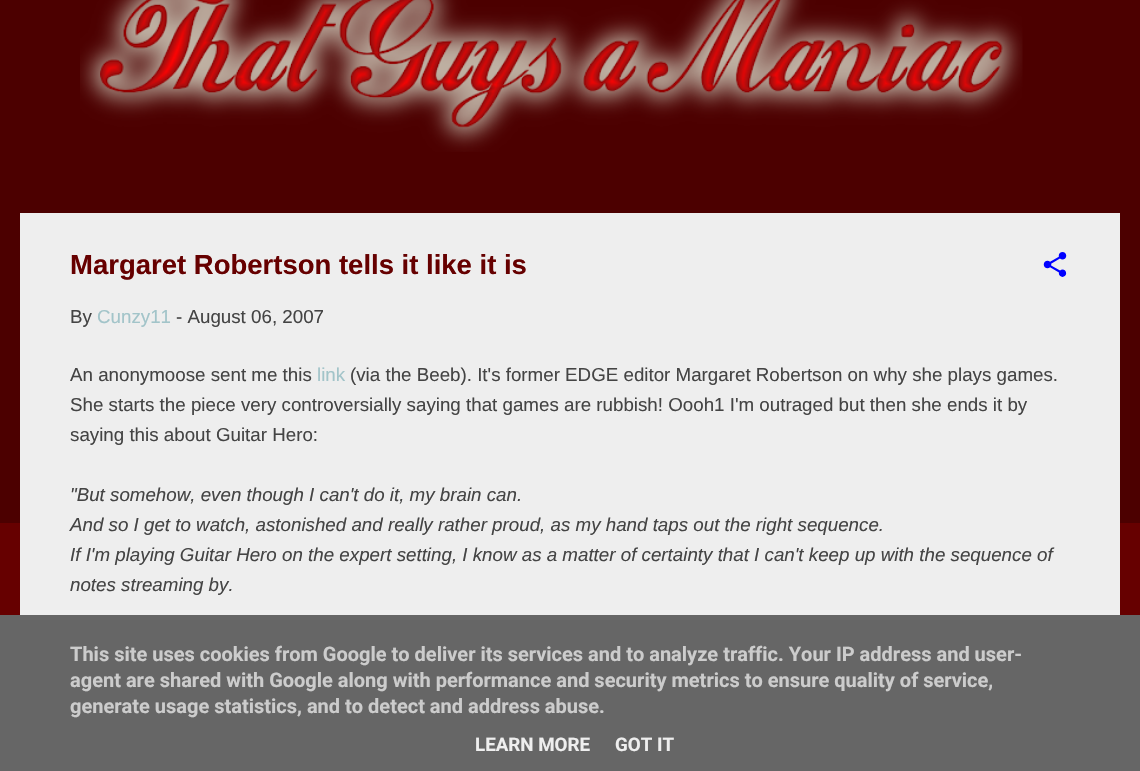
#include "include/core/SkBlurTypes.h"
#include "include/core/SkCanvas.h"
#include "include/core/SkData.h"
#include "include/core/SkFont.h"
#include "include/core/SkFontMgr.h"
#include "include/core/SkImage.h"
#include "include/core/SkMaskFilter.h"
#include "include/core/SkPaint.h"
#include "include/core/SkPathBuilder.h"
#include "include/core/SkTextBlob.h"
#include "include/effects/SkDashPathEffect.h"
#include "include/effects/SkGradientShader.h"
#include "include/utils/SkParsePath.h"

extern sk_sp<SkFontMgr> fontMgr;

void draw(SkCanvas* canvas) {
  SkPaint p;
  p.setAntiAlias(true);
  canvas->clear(SkColorSetRGB(102, 0, 0));
  p.setColor(SkColorSetRGB(76, 0, 0));
  canvas->drawRect(SkRect::MakeLTRB(0, 0, 1140, 523), p);
  canvas->drawImageRect(SkImages::DeferredFromEncodedData(SkData::MakeFromFileName("images/1.png")), SkRect::MakeLTRB(80, 0, 1023, 152), SkSamplingOptions());
  p.setColor(SkColorSetRGB(238, 238, 238));
  canvas->drawRect(SkRect::MakeLTRB(20, 213, 1120, 615), p);
  canvas->drawImageRect(SkImages::DeferredFromEncodedData(SkData::MakeFromFileName("images/2.png")), SkRect::MakeLTRB(1043, 252, 1067, 277), SkSamplingOptions());
  p.setColor(SkColorSetRGB(102, 102, 102));
  canvas->drawRect(SkRect::MakeLTRB(0, 615, 1140, 771), p);
  SkFont font1(fontMgr->matchFamilyStyle("Liberation Sans", SkFontStyle::Bold()), 27.5f);
  font1.setSubpixel(true);
  p.setColor(SkColorSetRGB(102, 0, 0));
  canvas->drawString("Margaret Robertson tells it like it is", 70, 274, font1, p);
  SkFont font2(fontMgr->matchFamilyStyle("Liberation Sans", SkFontStyle::Normal()), 18.75f);
  font2.setSubpixel(true);
  p.setColor(SkColorSetRGB(68, 68, 68));
  canvas->drawString("By", 70, 323, font2, p);
  p.setColor(SkColorSetRGB(162, 196, 201));
  canvas->drawString("Cunzy11", 97, 323, font2, p);
  p.setColor(SkColorSetRGB(68, 68, 68));
  canvas->drawString("- August 06, 2007", 176, 323, font2, p);
  canvas->drawString("An anonymoose sent me this", 70, 381, font2, p);
  p.setColor(SkColorSetRGB(162, 196, 201));
  canvas->drawString("link", 317, 381, font2, p);
  p.setColor(SkColorSetRGB(68, 68, 68));
  canvas->drawString("(via the Beeb). It's former EDGE editor Margaret Robertson on why she plays games.", 350, 381, font2, p);
  canvas->drawString("She starts the piece very controversially saying that games are rubbish! Oooh1 I'm outraged but then she ends it by", 70, 411, font2, p);
  canvas->drawString("saying this about Guitar Hero:", 70, 441, font2, p);
  SkFont font3(fontMgr->matchFamilyStyle("Liberation Sans", SkFontStyle::Italic()), 18.75f);
  font3.setSubpixel(true);
  canvas->drawString("\"But somehow, even though I can't do it, my brain can.", 70, 501, font3, p);
  canvas->drawString("And so I get to watch, astonished and really rather proud, as my hand taps out the right sequence.", 70, 531, font3, p);
  canvas->drawString("If I'm playing Guitar Hero on the expert setting, I know as a matter of certainty that I can't keep up with the sequence of", 70, 561, font3, p);
  canvas->drawString("notes streaming by.", 70, 591, font3, p);
  SkFont font4(fontMgr->matchFamilyStyle("Roboto", SkFontStyle::Bold()), 20);
  font4.setSubpixel(true);
  p.setColor(SkColorSetRGB(204, 204, 204));
  canvas->drawString("This site uses cookies from Google to deliver its services and to analyze traffic. Your IP address and user-", 70, 661, font4, p);
  canvas->drawString("agent are shared with Google along with performance and security metrics to ensure quality of service,", 70, 687, font4, p);
  canvas->drawString("generate usage statistics, and to detect and address abuse.", 70, 713, font4, p);
  SkFont font5(fontMgr->matchFamilyStyle("Roboto", SkFontStyle::Bold()), 18.75f);
  font5.setSubpixel(true);
  p.setColor(SkColorSetRGB(238, 238, 238));
  canvas->drawString("LEARN MORE", 475, 751, font5, p);
  canvas->drawString("GOT IT", 615, 751, font5, p);
}
